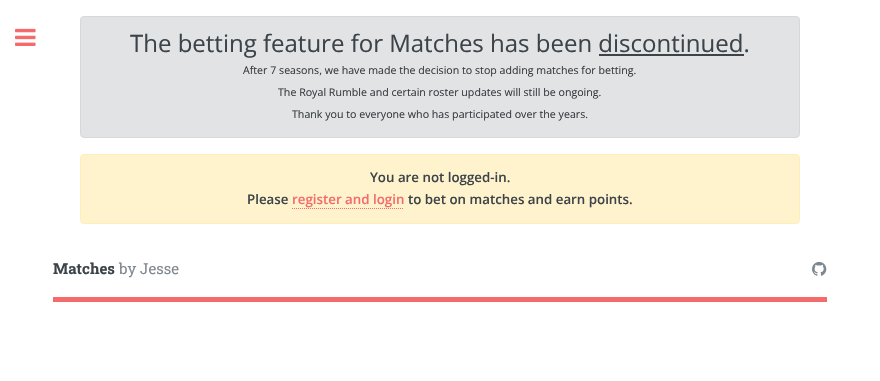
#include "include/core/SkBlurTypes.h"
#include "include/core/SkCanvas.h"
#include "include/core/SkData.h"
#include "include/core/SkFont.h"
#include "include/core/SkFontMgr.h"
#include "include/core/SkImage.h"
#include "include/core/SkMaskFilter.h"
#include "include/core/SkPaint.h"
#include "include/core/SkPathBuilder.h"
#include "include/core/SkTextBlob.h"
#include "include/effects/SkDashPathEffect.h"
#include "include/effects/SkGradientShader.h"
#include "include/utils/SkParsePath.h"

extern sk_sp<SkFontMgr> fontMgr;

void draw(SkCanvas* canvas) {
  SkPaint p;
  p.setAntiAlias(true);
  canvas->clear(SK_ColorWHITE);
  canvas->drawImageRect(SkImages::DeferredFromEncodedData(SkData::MakeFromFileName("images/1.png")), SkRect::MakeLTRB(15, 28, 36, 46), SkSamplingOptions());
  p.setColor(SkColorSetRGB(226, 227, 229));
  canvas->drawRoundRect(SkRect::MakeLTRB(80.5f, 16.5f, 799.5f, 137.5f), 3.5f, 3.5f, p);
  p.setStyle(SkPaint::kStroke_Style);
  p.setStrokeWidth(1);
  p.setColor(SkColorSetRGB(214, 216, 219));
  canvas->drawRoundRect(SkRect::MakeLTRB(80.5f, 16.5f, 799.5f, 137.5f), 3.5f, 3.5f, p);
  p.setStyle(SkPaint::kFill_Style);
  p.setColor(SkColorSetRGB(61, 68, 73));
  canvas->drawRect(SkRect::MakeLTRB(599, 54, 744, 56), p);
  p.setColor(SkColorSetRGB(255, 243, 205));
  canvas->drawRoundRect(SkRect::MakeLTRB(80.5f, 154.5f, 799.5f, 223.5f), 3.5f, 3.5f, p);
  p.setStyle(SkPaint::kStroke_Style);
  p.setColor(SkColorSetRGB(255, 238, 186));
  canvas->drawRoundRect(SkRect::MakeLTRB(80.5f, 154.5f, 799.5f, 223.5f), 3.5f, 3.5f, p);
  p.setColor(SkColorSetRGB(245, 106, 106));
  p.setPathEffect(SkDashPathEffect::Make({{1, 1}}, 0));
  canvas->drawPath(SkPathBuilder().moveTo(292, 208.5f).lineTo(404, 208.5f).detach(), p);
  p.setPathEffect(nullptr);
  p.setStyle(SkPaint::kFill_Style);
  canvas->drawRect(SkRect::MakeLTRB(53, 297, 827, 302), p);
  canvas->drawImageRect(SkImages::DeferredFromEncodedData(SkData::MakeFromFileName("images/2.png")), SkRect::MakeLTRB(812, 261, 827, 276), SkSamplingOptions());
  SkFont font1(fontMgr->matchFamilyStyle("Open Sans", SkFontStyle::Normal()), 24);
  font1.setSubpixel(true);
  p.setColor(SkColorSetRGB(61, 68, 73));
  canvas->drawString("The betting feature for Matches has been discontinued.", 130, 52, font1, p);
  SkFont font2(fontMgr->matchFamilyStyle("Open Sans", SkFontStyle::Normal()), 10.65f);
  font2.setSubpixel(true);
  p.setColor(SkColorSetRGB(56, 61, 65));
  canvas->drawString("After 7 seasons, we have made the decision to stop adding matches for betting.", 243, 74, font2, p);
  canvas->drawString("The Royal Rumble and certain roster updates will still be ongoing.", 278, 96, font2, p);
  canvas->drawString("Thank you to everyone who has participated over the years.", 292, 118, font2, p);
  SkFont font3(fontMgr->matchFamilyStyle("Open Sans", SkFontStyle(600, SkFontStyle::kNormal_Width, SkFontStyle::kUpright_Slant)), 13.3f);
  font3.setSubpixel(true);
  p.setColor(SkColorSetRGB(61, 68, 73));
  canvas->drawString("You are not logged-in.", 370, 182, font3, p);
  canvas->drawString("Please", 247, 204, font3, p);
  p.setColor(SkColorSetRGB(245, 106, 106));
  canvas->drawString("register and login", 292, 204, font3, p);
  p.setColor(SkColorSetRGB(61, 68, 73));
  canvas->drawString("to bet on matches and earn points.", 408, 204, font3, p);
  SkFont font4(fontMgr->matchFamilyStyle("Roboto Slab", SkFontStyle::Bold()), 15);
  font4.setSubpixel(true);
  canvas->drawString("Matches", 53, 274, font4, p);
  SkFont font5(fontMgr->matchFamilyStyle("Roboto Slab", SkFontStyle::Normal()), 15);
  font5.setSubpixel(true);
  p.setColor(SkColorSetRGB(127, 136, 143));
  canvas->drawString("by Jesse", 119, 274, font5, p);
}
